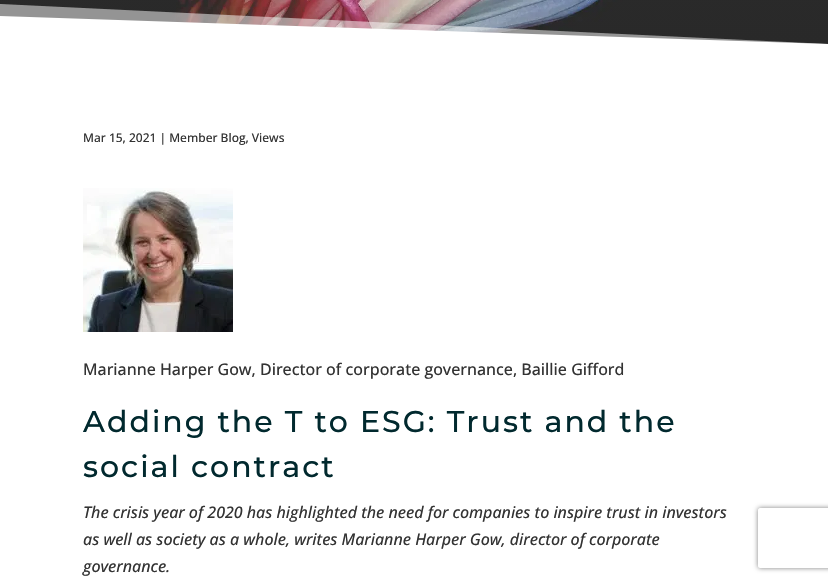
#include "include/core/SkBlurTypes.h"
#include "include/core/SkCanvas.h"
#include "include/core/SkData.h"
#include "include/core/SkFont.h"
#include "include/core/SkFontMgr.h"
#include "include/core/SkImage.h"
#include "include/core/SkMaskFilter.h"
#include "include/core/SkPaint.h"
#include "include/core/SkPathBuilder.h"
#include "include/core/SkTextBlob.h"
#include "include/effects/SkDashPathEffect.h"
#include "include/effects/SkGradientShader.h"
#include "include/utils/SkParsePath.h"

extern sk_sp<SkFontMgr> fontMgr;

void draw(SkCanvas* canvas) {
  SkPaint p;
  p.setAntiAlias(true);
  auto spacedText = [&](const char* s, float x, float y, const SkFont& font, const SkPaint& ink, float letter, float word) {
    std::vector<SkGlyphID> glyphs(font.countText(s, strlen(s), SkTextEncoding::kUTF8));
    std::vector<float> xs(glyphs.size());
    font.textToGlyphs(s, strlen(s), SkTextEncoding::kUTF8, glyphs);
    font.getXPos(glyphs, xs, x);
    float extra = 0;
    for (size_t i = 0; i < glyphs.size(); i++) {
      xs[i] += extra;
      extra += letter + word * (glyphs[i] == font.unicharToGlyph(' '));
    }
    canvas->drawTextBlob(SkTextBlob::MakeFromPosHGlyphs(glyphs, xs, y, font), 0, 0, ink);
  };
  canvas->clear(SK_ColorWHITE);
  canvas->drawImageRect(SkImages::DeferredFromEncodedData(SkData::MakeFromFileName("images/1.png")), SkRect::MakeLTRB(0, 0, 828, 44), SkSamplingOptions());
  p.setColor(SK_ColorWHITE);
  canvas->drawPath(SkPathBuilder().moveTo(0, 16).lineTo(0, 44).lineTo(828, 44).close().detach(), p);
  canvas->drawImageRect(SkImages::DeferredFromEncodedData(SkData::MakeFromFileName("images/2.png")), SkRect::MakeLTRB(83, 188, 233, 332), SkSamplingOptions());
  canvas->save();
  canvas->clipPath(SkPathBuilder(SkPathFillType::kEvenOdd).moveTo(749, 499).lineTo(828, 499).lineTo(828, 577).lineTo(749, 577).close().moveTo(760, 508).lineTo(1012, 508).cubicTo(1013, 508, 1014, 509, 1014, 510).lineTo(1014, 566).cubicTo(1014, 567, 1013, 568, 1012, 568).lineTo(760, 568).cubicTo(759, 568, 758, 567, 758, 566).lineTo(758, 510).cubicTo(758, 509, 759, 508, 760, 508).close().detach(), true);
  p.setColor(SkColorSetRGB(128, 128, 128));
  p.setMaskFilter(SkMaskFilter::MakeBlur(kNormal_SkBlurStyle, 2.5f));
  canvas->drawRoundRect(SkRect::MakeLTRB(758, 508, 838, 568), 2, 2, p);
  p.setMaskFilter(nullptr);
  canvas->restore();
  SkFont font1(fontMgr->matchFamilyStyle("Open Sans", SkFontStyle(500, SkFontStyle::kNormal_Width, SkFontStyle::kUpright_Slant)), 12);
  font1.setSubpixel(true);
  p.setColor(SkColorSetRGB(51, 51, 51));
  canvas->drawString("Mar 15, 2021 | Member Blog, Views", 83, 142, font1, p);
  SkFont font2(fontMgr->matchFamilyStyle("Open Sans", SkFontStyle(500, SkFontStyle::kNormal_Width, SkFontStyle::kUpright_Slant)), 16);
  font2.setSubpixel(true);
  canvas->drawString("Marianne Harper Gow, Director of corporate governance, Baillie Gifford", 83, 375, font2, p);
  SkFont font3(fontMgr->matchFamilyStyle("Montserrat", SkFontStyle(100, SkFontStyle::kNormal_Width, SkFontStyle::kUpright_Slant)), 30);
  font3.setSubpixel(true);
  p.setColor(SkColorSetRGB(1, 41, 46));
  spacedText("Adding the T to ESG: Trust and the", 83, 432, font3, p, 2, 0);
  spacedText("social contract", 83, 477, font3, p, 2, 0);
  SkFont font4(fontMgr->matchFamilyStyle("Open Sans", SkFontStyle(500, SkFontStyle::kNormal_Width, SkFontStyle::kItalic_Slant)), 16);
  font4.setSubpixel(true);
  p.setColor(SkColorSetRGB(51, 51, 51));
  canvas->drawString("The crisis year of 2020 has highlighted the need for companies to inspire trust in investors", 83, 518, font4, p);
  canvas->drawString("as well as society as a whole, writes Marianne Harper Gow, director of corporate", 83, 545, font4, p);
  canvas->drawString("governance.", 83, 572, font4, p);
}
